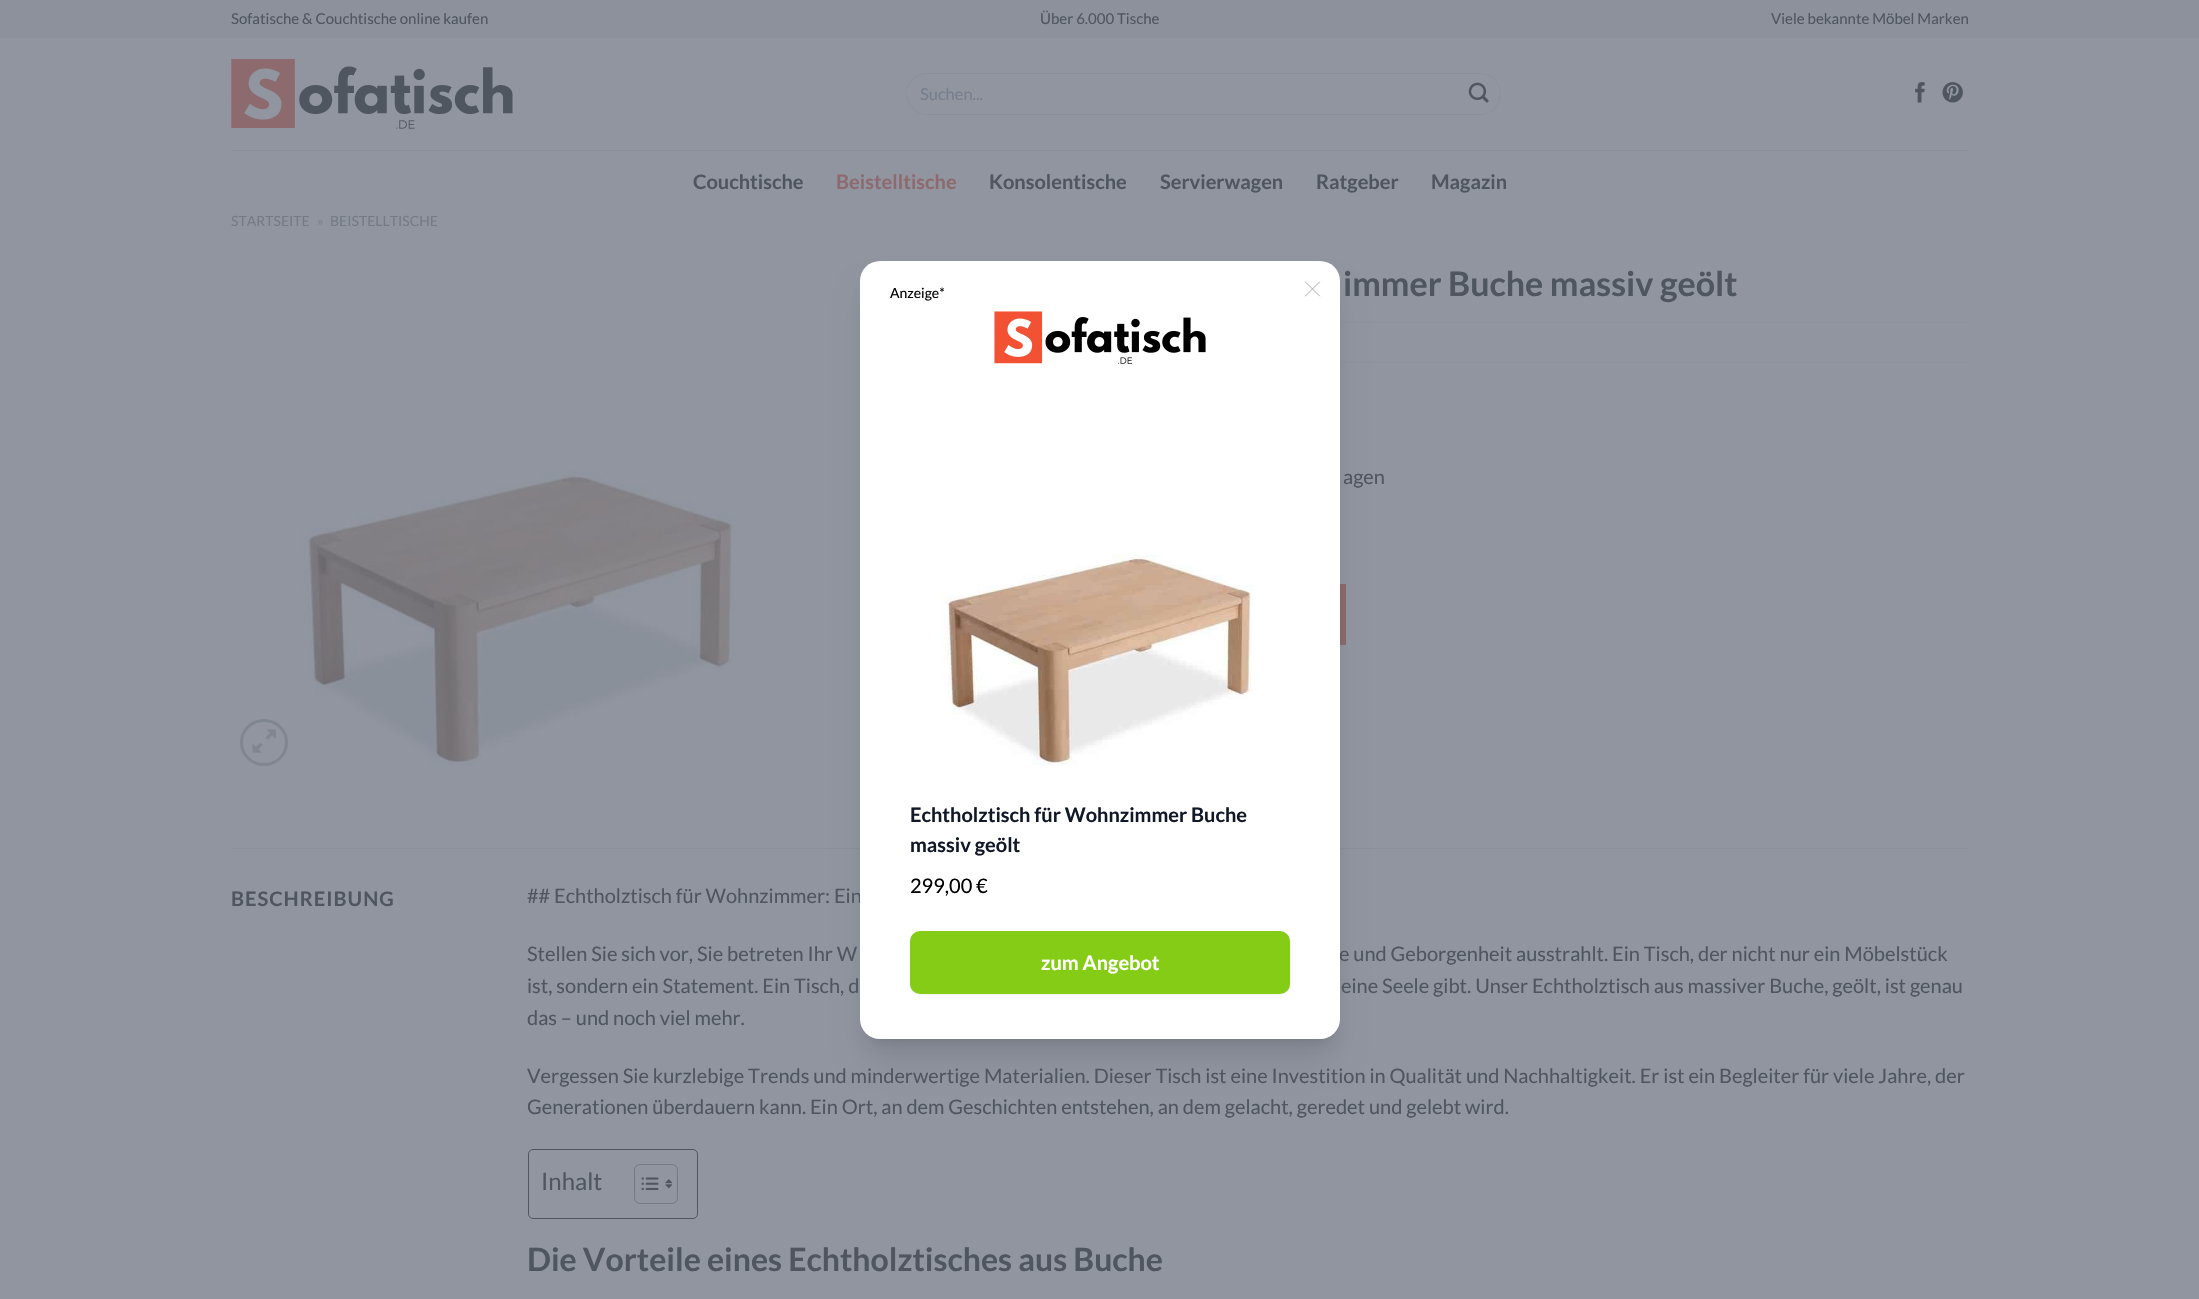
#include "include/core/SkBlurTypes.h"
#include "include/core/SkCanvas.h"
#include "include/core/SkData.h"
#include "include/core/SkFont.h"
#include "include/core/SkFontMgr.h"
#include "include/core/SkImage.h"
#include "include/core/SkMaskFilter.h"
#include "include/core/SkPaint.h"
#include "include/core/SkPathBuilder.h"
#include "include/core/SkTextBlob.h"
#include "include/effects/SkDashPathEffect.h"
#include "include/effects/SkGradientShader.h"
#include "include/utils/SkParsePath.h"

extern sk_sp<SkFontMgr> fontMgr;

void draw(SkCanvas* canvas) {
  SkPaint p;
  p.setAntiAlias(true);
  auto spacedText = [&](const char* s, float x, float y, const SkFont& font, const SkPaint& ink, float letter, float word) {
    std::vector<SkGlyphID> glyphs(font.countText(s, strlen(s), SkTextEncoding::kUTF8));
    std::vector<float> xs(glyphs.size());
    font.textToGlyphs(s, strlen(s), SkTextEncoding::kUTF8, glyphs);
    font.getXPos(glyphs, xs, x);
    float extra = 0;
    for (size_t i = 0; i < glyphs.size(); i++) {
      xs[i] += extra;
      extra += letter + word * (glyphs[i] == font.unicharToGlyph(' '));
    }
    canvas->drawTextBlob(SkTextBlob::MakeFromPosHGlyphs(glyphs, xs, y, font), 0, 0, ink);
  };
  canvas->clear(SkColorSetRGB(144, 149, 160));
  p.setColor(SkColorSetRGB(140, 145, 155));
  canvas->drawRect(SkRect::MakeLTRB(0, 0, 2199, 38), p);
  canvas->drawImageRect(SkImages::DeferredFromEncodedData(SkData::MakeFromFileName("images/1.png")), SkRect::MakeLTRB(231, 59, 513, 129), SkSamplingOptions());
  p.setStyle(SkPaint::kStroke_Style);
  p.setStrokeWidth(1);
  p.setColor(SkColorSetARGB(23, 80, 86, 96));
  canvas->drawRoundRect(SkRect::MakeLTRB(906.5f, 73.5f, 1500.5f, 114.5f), 20.5f, 20.5f, p);
  canvas->drawImageRect(SkImages::DeferredFromEncodedData(SkData::MakeFromFileName("images/2.png")), SkRect::MakeLTRB(1468, 82, 1489, 103), SkSamplingOptions());
  canvas->drawImageRect(SkImages::DeferredFromEncodedData(SkData::MakeFromFileName("images/3.png")), SkRect::MakeLTRB(1915, 82, 1925, 103), SkSamplingOptions());
  canvas->drawImageRect(SkImages::DeferredFromEncodedData(SkData::MakeFromFileName("images/4.png")), SkRect::MakeLTRB(1942, 82, 1963, 103), SkSamplingOptions());
  p.setStyle(SkPaint::kFill_Style);
  p.setColor(SkColorSetRGB(138, 143, 154));
  canvas->drawRect(SkRect::MakeLTRB(231, 150, 1969, 151), p);
  p.setStyle(SkPaint::kStroke_Style);
  p.setStrokeWidth(1.2f);
  p.setColor(SkColorSetRGB(136, 141, 151));
  p.setPathEffect(SkDashPathEffect::Make({{1.25f, 1.25f}}, 0));
  canvas->drawPath(SkPathBuilder().moveTo(971, 322).lineTo(1969, 322).detach(), p);
  p.setPathEffect(nullptr);
  p.setPathEffect(SkDashPathEffect::Make({{1.25f, 1.25f}}, 0));
  canvas->drawPath(SkPathBuilder().moveTo(971, 362).lineTo(1969, 362).detach(), p);
  p.setPathEffect(nullptr);
  p.setStyle(SkPaint::kFill_Style);
  p.setColor(SkColorSetRGB(141, 106, 109));
  canvas->drawRect(SkRect::MakeLTRB(1340, 585, 1345, 644), p);
  p.setStyle(SkPaint::kStroke_Style);
  p.setStrokeWidth(1);
  p.setColor(SkColorSetRGB(138, 105, 108));
  canvas->drawRect(SkRect::MakeLTRB(971.5f, 584.5f, 1345.5f, 644.5f), p);
  p.setStrokeWidth(3);
  p.setColor(SkColorSetRGB(128, 134, 144));
  canvas->drawRoundRect(SkRect::MakeLTRB(241.5f, 720.5f, 286.5f, 764.5f), 22, 22, p);
  canvas->drawImageRect(SkImages::DeferredFromEncodedData(SkData::MakeFromFileName("images/5.png")), SkRect::MakeLTRB(252, 729, 276, 753), SkSamplingOptions());
  canvas->drawImageRect(SkImages::DeferredFromEncodedData(SkData::MakeFromFileName("images/6.png")), SkRect::MakeLTRB(300, 471, 735, 766), SkSamplingOptions());
  p.setStyle(SkPaint::kFill_Style);
  p.setColor(SkColorSetRGB(139, 145, 155));
  canvas->drawRect(SkRect::MakeLTRB(231, 848, 1969, 849), p);
  p.setStyle(SkPaint::kStroke_Style);
  p.setStrokeWidth(1);
  p.setColor(SkColorSetRGB(80, 86, 96));
  canvas->drawRoundRect(SkRect::MakeLTRB(528.5f, 1149.5f, 697.5f, 1218.5f), 4.5f, 4.5f, p);
  p.setColor(SkColorSetRGB(119, 122, 132));
  canvas->drawRoundRect(SkRect::MakeLTRB(634.5f, 1164.5f, 677.5f, 1203.5f), 5.5f, 5.5f, p);
  canvas->drawImageRect(SkImages::DeferredFromEncodedData(SkData::MakeFromFileName("images/7.png")), SkRect::MakeLTRB(641, 1177, 659, 1190), SkSamplingOptions());
  canvas->drawImageRect(SkImages::DeferredFromEncodedData(SkData::MakeFromFileName("images/8.png")), SkRect::MakeLTRB(665, 1179, 673, 1189), SkSamplingOptions());
  p.setStyle(SkPaint::kFill_Style);
  p.setColor(SkColorSetARGB(26, 0, 0, 0));
  p.setMaskFilter(SkMaskFilter::MakeBlur(kNormal_SkBlurStyle, 6));
  canvas->drawRoundRect(SkRect::MakeLTRB(868, 279, 1333, 1041), 13, 13, p);
  p.setMaskFilter(nullptr);
  p.setMaskFilter(SkMaskFilter::MakeBlur(kNormal_SkBlurStyle, 15.5f));
  canvas->drawRoundRect(SkRect::MakeLTRB(866, 293, 1334, 1058), 14, 14, p);
  p.setMaskFilter(nullptr);
  SkFont font1(fontMgr->matchFamilyStyle("Lato", SkFontStyle::Normal()), 15);
  font1.setSubpixel(true);
  p.setColor(SkColorSetRGB(80, 86, 96));
  canvas->drawString("Sofatische & Couchtische online kaufen", 231, 24, font1, p);
  canvas->drawString("Über 6.000 Tische", 1040, 24, font1, p);
  canvas->drawString("Viele bekannte Möbel Marken", 1771, 24, font1, p);
  SkFont font2(fontMgr->matchFamilyStyle("Lato", SkFontStyle::Normal()), 16.5f);
  font2.setSubpixel(true);
  p.setColor(SkColorSetRGB(119, 126, 140));
  canvas->drawString("Suchen...", 920, 100, font2, p);
  SkFont font3(fontMgr->matchFamilyStyle("Lato", SkFontStyle::Bold()), 20);
  font3.setSubpixel(true);
  p.setColor(SkColorSetRGB(80, 86, 96));
  canvas->drawString("Couchtische", 693, 189, font3, p);
  p.setColor(SkColorSetRGB(141, 106, 109));
  canvas->drawString("Beistelltische", 836, 189, font3, p);
  p.setColor(SkColorSetRGB(80, 86, 96));
  canvas->drawString("Konsolentische", 989, 189, font3, p);
  canvas->drawString("Servierwagen", 1160, 189, font3, p);
  canvas->drawString("Ratgeber", 1316, 189, font3, p);
  canvas->drawString("Magazin", 1431, 189, font3, p);
  SkFont font4(fontMgr->matchFamilyStyle("Lato", SkFontStyle::Normal()), 14);
  font4.setSubpixel(true);
  p.setColor(SkColorSetRGB(117, 123, 133));
  canvas->drawString("STARTSEITE", 231, 226, font4, p);
  p.setColor(SkColorSetRGB(125, 130, 141));
  canvas->drawString("»", 317, 226, font4, p);
  p.setColor(SkColorSetRGB(117, 123, 133));
  canvas->drawString("BEISTELLTISCHE", 330, 226, font4, p);
  SkFont font5(fontMgr->matchFamilyStyle("Lato", SkFontStyle::Bold()), 34);
  font5.setSubpixel(true);
  p.setColor(SkColorSetRGB(80, 86, 96));
  canvas->drawString("immer Buche massiv geölt", 1343, 296, font5, p);
  SkFont font6(fontMgr->matchFamilyStyle("Lato", SkFontStyle::Normal()), 20);
  font6.setSubpixel(true);
  canvas->drawString("agen", 1343, 484, font6, p);
  spacedText("BESCHREIBUNG", 231, 906, font3, p, 1, 0);
  canvas->drawString("## Echtholztisch für Wohnzimmer: Ein", 527, 903, font6, p);
  canvas->drawString("Stellen Sie sich vor, Sie betreten Ihr W", 527, 961, font6, p);
  canvas->drawString("e und Geborgenheit ausstrahlt. Ein Tisch, der nicht nur ein Möbelstück", 1339, 961, font6, p);
  canvas->drawString("ist, sondern ein Statement. Ein Tisch, d", 527, 993, font6, p);
  canvas->drawString("eine Seele gibt. Unser Echtholztisch aus massiver Buche, geölt, ist genau", 1341, 993, font6, p);
  canvas->drawString("das – und noch viel mehr.", 527, 1025, font6, p);
  canvas->drawString("Vergessen Sie kurzlebige Trends und minderwertige Materialien. Dieser Tisch ist eine Investition in Qualität und Nachhaltigkeit. Er ist ein Begleiter für viele Jahre, der", 527, 1083, font6, p);
  canvas->drawString("Generationen überdauern kann. Ein Ort, an dem Geschichten entstehen, an dem gelacht, geredet und gelebt wird.", 527, 1114, font6, p);
  SkFont font7(fontMgr->matchFamilyStyle("Lato", SkFontStyle::Normal()), 24);
  font7.setSubpixel(true);
  canvas->drawString("Inhalt", 541, 1190, font7, p);
  SkFont font8(fontMgr->matchFamilyStyle("Lato", SkFontStyle::Bold()), 32);
  font8.setSubpixel(true);
  canvas->drawString("Die Vorteile eines Echtholztisches aus Buche", 527, 1271, font8, p);
  p.setColor(SK_ColorWHITE);
  canvas->drawRoundRect(SkRect::MakeLTRB(860, 261, 1340, 1039), 20, 20, p);
  p.setColor(SK_ColorBLACK);
  canvas->drawString("Anzeige*", 890, 298, font4, p);
  p.setStyle(SkPaint::kStroke_Style);
  p.setStrokeWidth(0.9f);
  p.setStrokeCap(SkPaint::kRound_Cap);
  p.setStrokeJoin(SkPaint::kRound_Join);
  p.setColor(SkColorSetRGB(156, 163, 175));
  canvas->drawPath(SkPathBuilder().moveTo(1305.5f, 296).lineTo(1319.5f, 282).moveTo(1305.5f, 282).lineTo(1319.5f, 296).detach(), p);
  canvas->drawImageRect(SkImages::DeferredFromEncodedData(SkData::MakeFromFileName("images/9.png")), SkRect::MakeLTRB(994, 311, 1206, 364), SkSamplingOptions());
  canvas->drawImageRect(SkImages::DeferredFromEncodedData(SkData::MakeFromFileName("images/10.png")), SkRect::MakeLTRB(942, 555, 1253, 765), SkSamplingOptions());
  p.setStyle(SkPaint::kFill_Style);
  p.setColor(SkColorSetRGB(17, 24, 39));
  canvas->drawString("Echtholztisch für Wohnzimmer Buche", 910, 822, font3, p);
  canvas->drawString("massiv geölt", 910, 852, font3, p);
  p.setColor(SK_ColorBLACK);
  canvas->drawString("299,00 €", 910, 893, font6, p);
  p.setColor(SkColorSetARGB(13, 0, 0, 0));
  p.setMaskFilter(SkMaskFilter::MakeBlur(kNormal_SkBlurStyle, 1));
  canvas->drawRoundRect(SkRect::MakeLTRB(910, 933, 1290, 995), 10, 10, p);
  p.setMaskFilter(nullptr);
  p.setColor(SkColorSetRGB(132, 204, 22));
  canvas->drawRoundRect(SkRect::MakeLTRB(910, 931, 1290, 994), 10, 10, p);
  p.setColor(SK_ColorWHITE);
  canvas->drawString("zum Angebot", 1041, 970, font3, p);
}
